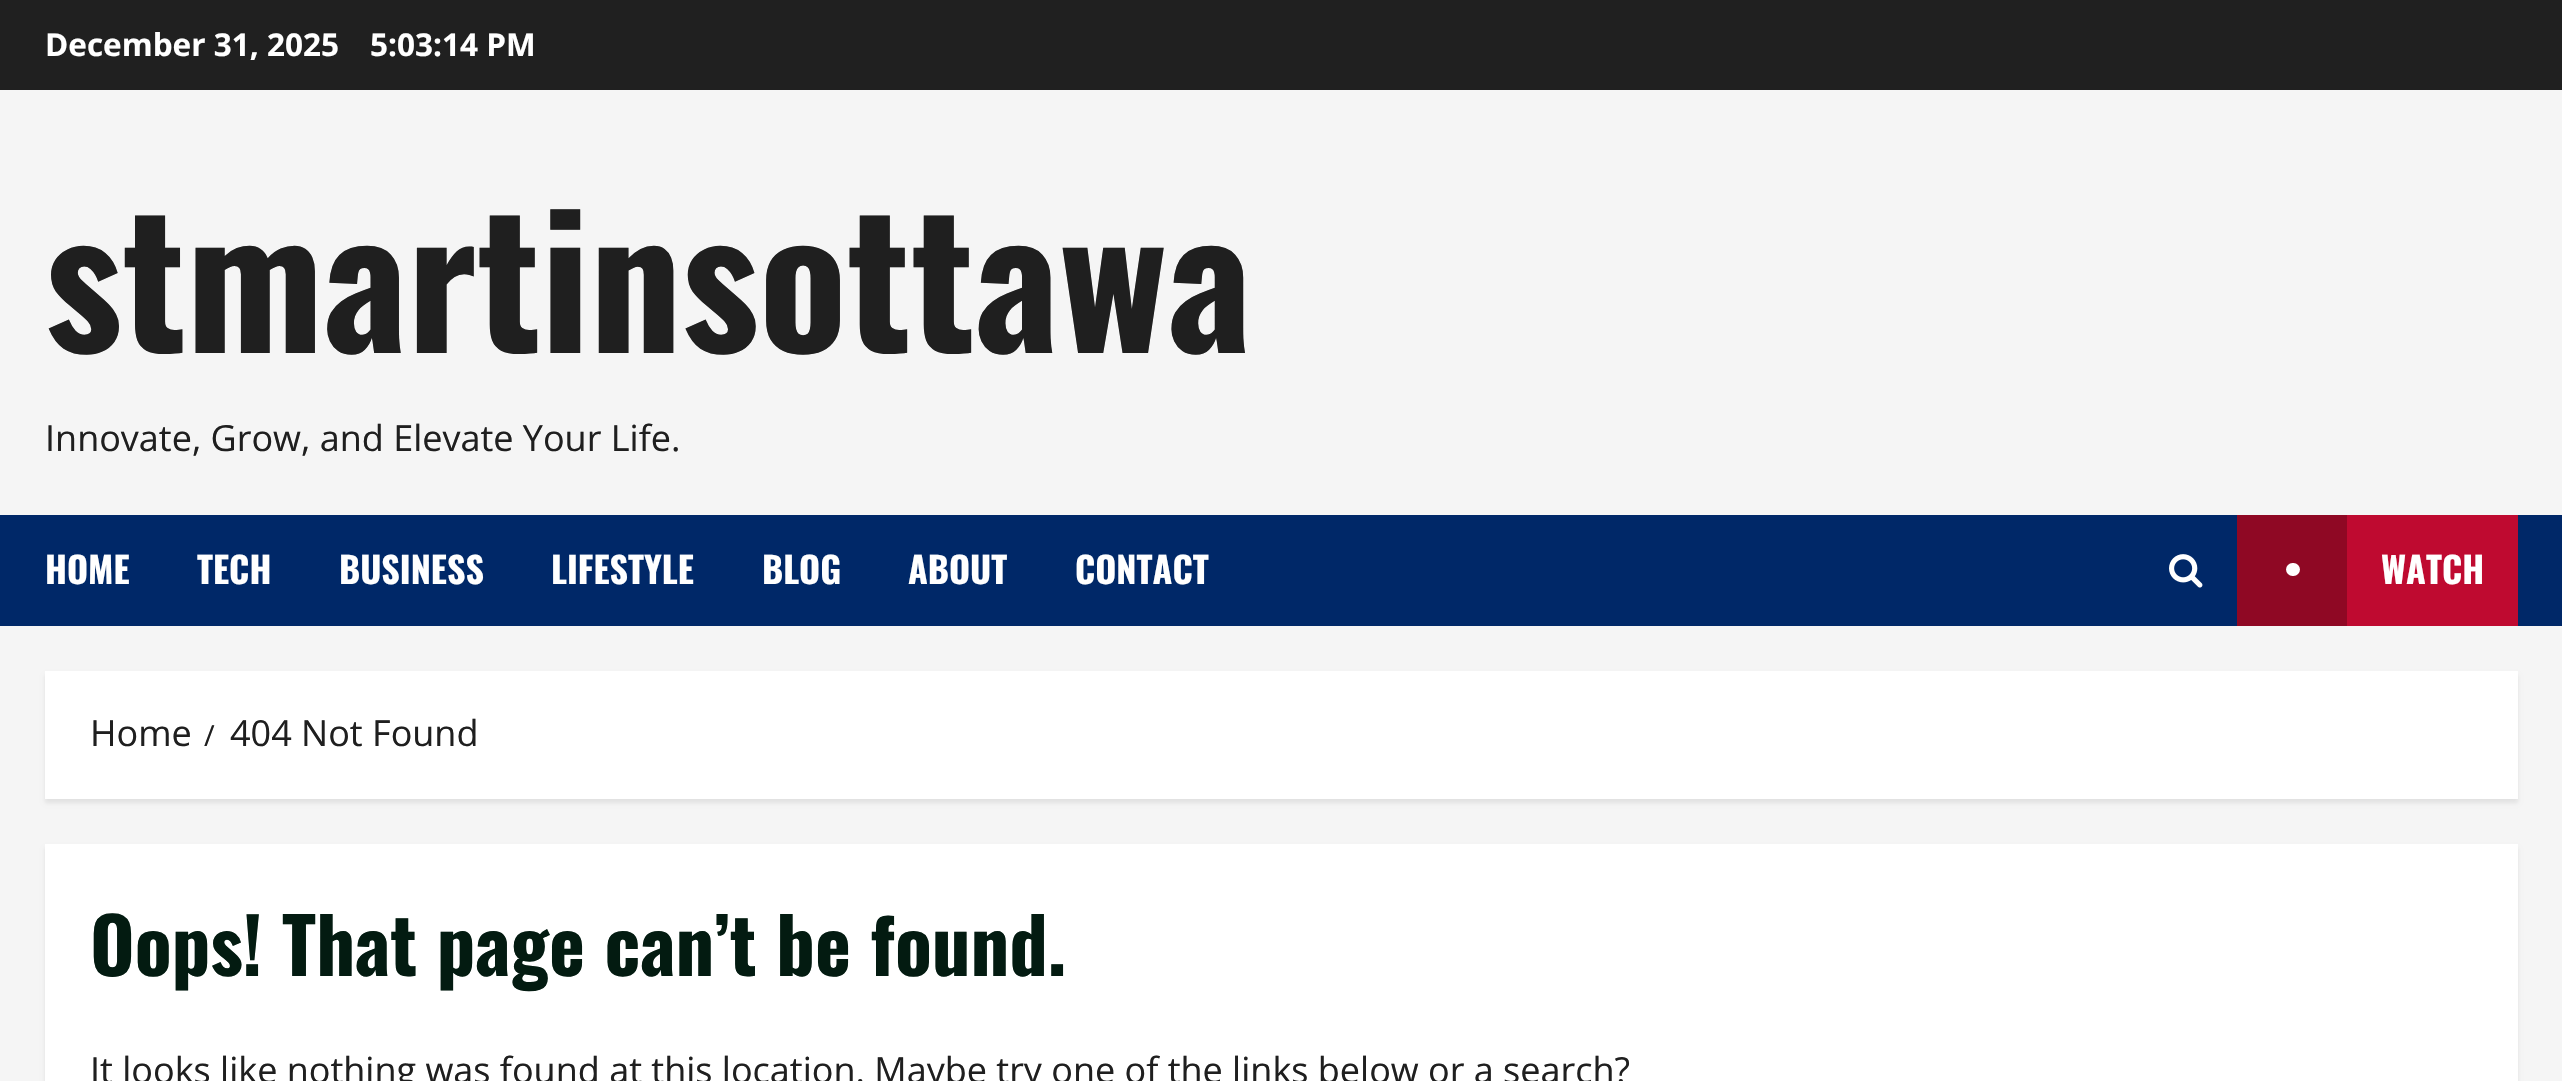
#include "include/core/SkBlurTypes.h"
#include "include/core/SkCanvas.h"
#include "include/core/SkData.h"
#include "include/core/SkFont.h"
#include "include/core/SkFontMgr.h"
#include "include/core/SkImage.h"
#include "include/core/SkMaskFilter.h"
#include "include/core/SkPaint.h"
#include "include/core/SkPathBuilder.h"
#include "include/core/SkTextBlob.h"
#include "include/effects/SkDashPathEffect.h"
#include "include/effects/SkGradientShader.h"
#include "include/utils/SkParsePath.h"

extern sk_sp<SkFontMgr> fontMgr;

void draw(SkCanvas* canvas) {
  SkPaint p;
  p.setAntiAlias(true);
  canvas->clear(SkColorSetRGB(245, 245, 245));
  p.setColor(SkColorSetRGB(32, 32, 32));
  canvas->drawRect(SkRect::MakeLTRB(0, 0, 2562, 90), p);
  p.setColor(SkColorSetRGB(0, 40, 104));
  canvas->drawRect(SkRect::MakeLTRB(0, 515, 2562, 626), p);
  canvas->drawImageRect(SkImages::DeferredFromEncodedData(SkData::MakeFromFileName("images/1.png")), SkRect::MakeLTRB(2169, 554, 2203, 588), SkSamplingOptions());
  p.setColor(SkColorSetRGB(191, 10, 48));
  canvas->drawRect(SkRect::MakeLTRB(2347, 515, 2518, 626), p);
  p.setColor(SkColorSetRGB(143, 8, 36));
  canvas->drawRect(SkRect::MakeLTRB(2237, 515, 2347, 626), p);
  p.setColor(SK_ColorWHITE);
  canvas->drawRoundRect(SkRect::MakeLTRB(2286, 563, 2300, 576), 6.5f, 6.5f, p);
  p.setColor(SkColorSetARGB(20, 0, 0, 0));
  p.setMaskFilter(SkMaskFilter::MakeBlur(kNormal_SkBlurStyle, 2));
  canvas->drawRect(SkRect::MakeLTRB(45, 675, 2518, 803), p);
  p.setMaskFilter(nullptr);
  p.setColor(SK_ColorWHITE);
  canvas->drawRect(SkRect::MakeLTRB(45, 671, 2518, 799), p);
  p.setColor(SkColorSetARGB(20, 0, 0, 0));
  p.setMaskFilter(SkMaskFilter::MakeBlur(kNormal_SkBlurStyle, 2));
  canvas->drawRect(SkRect::MakeLTRB(45, 848, 2518, 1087), p);
  p.setMaskFilter(nullptr);
  p.setColor(SK_ColorWHITE);
  canvas->drawRect(SkRect::MakeLTRB(45, 844, 2518, 1081), p);
  SkFont font1(fontMgr->matchFamilyStyle("Open Sans", SkFontStyle::Bold()), 31.5f);
  font1.setSubpixel(true);
  canvas->drawString("December 31, 2025", 45, 56, font1, p);
  canvas->drawString("5:03:14 PM", 370, 56, font1, p);
  SkFont font2(fontMgr->matchFamilyStyle("Oswald", SkFontStyle::Bold()), 182.25f);
  font2.setSubpixel(true);
  p.setColor(SkColorSetRGB(31, 31, 31));
  canvas->drawString("stmartinsottawa", 45, 353, font2, p);
  SkFont font3(fontMgr->matchFamilyStyle("Open Sans", SkFontStyle::Normal()), 36);
  font3.setSubpixel(true);
  canvas->drawString("Innovate, Grow, and Elevate Your Life.", 45, 451, font3, p);
  SkFont font4(fontMgr->matchFamilyStyle("Oswald", SkFontStyle::Bold()), 36);
  font4.setSubpixel(true);
  p.setColor(SK_ColorWHITE);
  canvas->drawString("HOME", 45, 584, font4, p);
  canvas->drawString("TECH", 197, 584, font4, p);
  canvas->drawString("BUSINESS", 339, 584, font4, p);
  canvas->drawString("LIFESTYLE", 551, 584, font4, p);
  canvas->drawString("BLOG", 762, 584, font4, p);
  canvas->drawString("ABOUT", 908, 584, font4, p);
  canvas->drawString("CONTACT", 1075, 584, font4, p);
  canvas->drawString("WATCH", 2381, 584, font4, p);
  p.setColor(SkColorSetRGB(31, 31, 31));
  canvas->drawString("Home", 90, 746, font3, p);
  SkFont font5(fontMgr->matchFamilyStyle("Open Sans", SkFontStyle::Normal()), 29);
  font5.setSubpixel(true);
  canvas->drawString("/", 204, 746, font5, p);
  canvas->drawString("404 Not Found", 230, 746, font3, p);
  SkFont font6(fontMgr->matchFamilyStyle("Oswald", SkFontStyle::Bold()), 76.5f);
  font6.setSubpixel(true);
  p.setColor(SkColorSetRGB(3, 27, 17));
  canvas->drawString("Oops! That page can’t be found.", 90, 976, font6, p);
  p.setColor(SkColorSetRGB(31, 31, 31));
  canvas->drawString("It looks like nothing was found at this location. Maybe try one of the links below or a search?", 90, 1083, font3, p);
}
